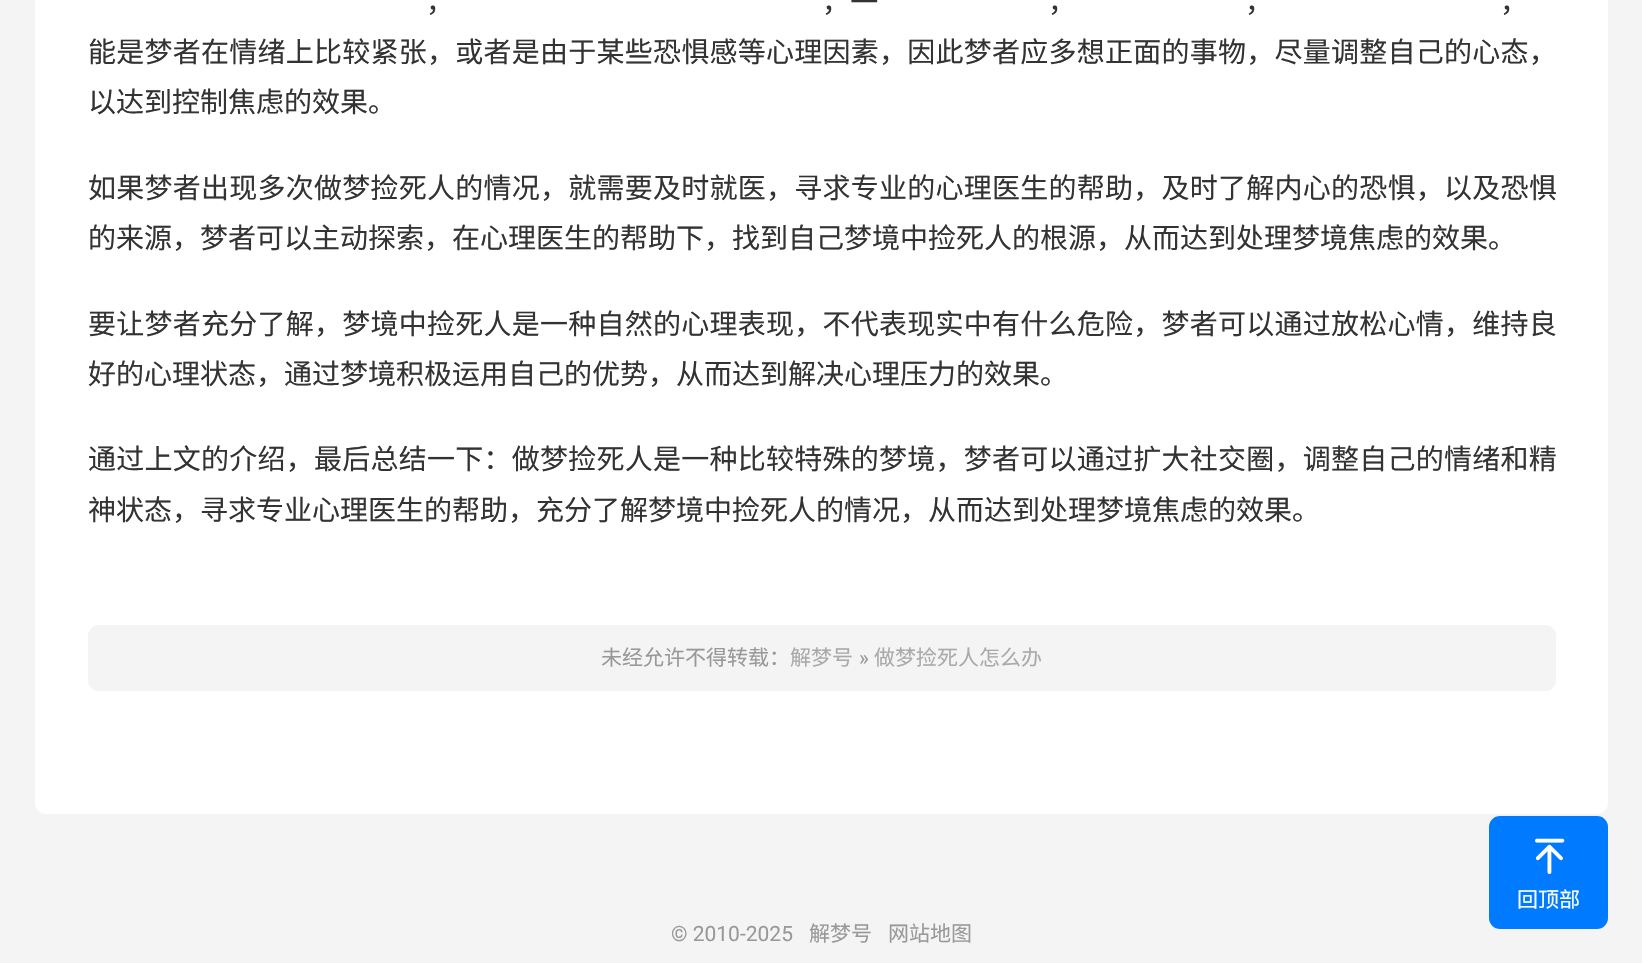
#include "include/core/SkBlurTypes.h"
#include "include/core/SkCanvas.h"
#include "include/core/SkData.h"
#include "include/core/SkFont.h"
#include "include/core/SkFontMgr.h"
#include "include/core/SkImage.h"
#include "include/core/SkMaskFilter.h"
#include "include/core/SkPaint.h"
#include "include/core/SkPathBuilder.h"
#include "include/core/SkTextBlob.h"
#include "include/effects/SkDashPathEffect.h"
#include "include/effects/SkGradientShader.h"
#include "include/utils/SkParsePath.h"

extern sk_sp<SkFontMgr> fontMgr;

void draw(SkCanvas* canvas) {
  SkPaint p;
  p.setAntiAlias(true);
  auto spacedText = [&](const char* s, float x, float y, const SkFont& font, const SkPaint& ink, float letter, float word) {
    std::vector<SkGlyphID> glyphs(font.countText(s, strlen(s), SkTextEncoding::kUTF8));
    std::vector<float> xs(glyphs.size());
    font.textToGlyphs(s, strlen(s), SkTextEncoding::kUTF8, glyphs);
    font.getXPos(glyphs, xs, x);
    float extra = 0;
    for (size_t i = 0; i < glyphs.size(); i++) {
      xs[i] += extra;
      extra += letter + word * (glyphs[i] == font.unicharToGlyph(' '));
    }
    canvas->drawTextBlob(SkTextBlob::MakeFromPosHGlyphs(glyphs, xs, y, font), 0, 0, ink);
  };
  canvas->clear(SkColorSetRGB(244, 244, 244));
  p.setColor(SK_ColorWHITE);
  canvas->drawRoundRect(SkRect::MakeLTRB(35, -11, 1608, 814), 11, 11, p);
  p.setColor(SkColorSetRGB(244, 244, 244));
  canvas->drawRoundRect(SkRect::MakeLTRB(88, 625, 1556, 691), 11, 11, p);
  p.setColor(SkColorSetRGB(0, 123, 255));
  canvas->drawRoundRect(SkRect::MakeLTRB(1490, 817, 1607, 928), 10, 10, p);
  p.setStyle(SkPaint::kStroke_Style);
  p.setStrokeWidth(2);
  canvas->drawRoundRect(SkRect::MakeLTRB(1490, 817, 1607, 928), 10, 10, p);
  canvas->drawImageRect(SkImages::DeferredFromEncodedData(SkData::MakeFromFileName("images/1.png")), SkRect::MakeLTRB(1535, 838, 1565, 875), SkSamplingOptions());
  SkFont font1(fontMgr->matchFamilyStyle("Noto Sans CJK SC", SkFontStyle::Normal()), 28);
  font1.setSubpixel(true);
  p.setStyle(SkPaint::kFill_Style);
  p.setColor(SkColorSetRGB(51, 51, 51));
  spacedText("，", 426, 12, font1, p, 0.25f, 0);
  spacedText("，一", 822, 12, font1, p, 0.25f, 0);
  spacedText("，", 1048, 12, font1, p, 0.25f, 0);
  spacedText("，", 1245, 12, font1, p, 0.25f, 0);
  spacedText("，", 1500, 12, font1, p, 0.25f, 0);
  spacedText("能是梦者在情绪上比较紧张，或者是由于某些恐惧感等心理因素，因此梦者应多想正面的事物，尽量调整自己的心态，", 88, 62, font1, p, 0.25f, 0);
  canvas->drawString("以达到控制焦虑的效果。", 88, 112, font1, p);
  spacedText("如果梦者出现多次做梦捡死人的情况，就需要及时就医，寻求专业的心理医生的帮助，及时了解内心的恐惧，以及恐惧", 88, 198, font1, p, 0.25f, 0);
  canvas->drawString("的来源，梦者可以主动探索，在心理医生的帮助下，找到自己梦境中捡死人的根源，从而达到处理梦境焦虑的效果。", 88, 248, font1, p);
  spacedText("要让梦者充分了解，梦境中捡死人是一种自然的心理表现，不代表现实中有什么危险，梦者可以通过放松心情，维持良", 88, 334, font1, p, 0.25f, 0);
  canvas->drawString("好的心理状态，通过梦境积极运用自己的优势，从而达到解决心理压力的效果。", 88, 384, font1, p);
  spacedText("通过上文的介绍，最后总结一下：做梦捡死人是一种比较特殊的梦境，梦者可以通过扩大社交圈，调整自己的情绪和精", 88, 469, font1, p, 0.25f, 0);
  canvas->drawString("神状态，寻求专业心理医生的帮助，充分了解梦境中捡死人的情况，从而达到处理梦境焦虑的效果。", 88, 520, font1, p);
  SkFont font2(fontMgr->matchFamilyStyle("Noto Sans CJK SC", SkFontStyle::Normal()), 21);
  font2.setSubpixel(true);
  p.setColor(SkColorSetRGB(153, 153, 153));
  canvas->drawString("未经允许不得转载：", 601, 665, font2, p);
  p.setColor(SkColorSetRGB(170, 170, 170));
  canvas->drawString("解梦号", 790, 665, font2, p);
  SkFont font3(fontMgr->matchFamilyStyle("Roboto", SkFontStyle::Normal()), 21);
  font3.setSubpixel(true);
  p.setColor(SkColorSetRGB(153, 153, 153));
  canvas->drawString("»", 859, 665, font3, p);
  p.setColor(SkColorSetRGB(170, 170, 170));
  canvas->drawString("做梦捡死人怎么办", 874, 665, font2, p);
  p.setColor(SK_ColorWHITE);
  canvas->drawString("回顶部", 1517, 907, font2, p);
  p.setColor(SkColorSetRGB(153, 153, 153));
  canvas->drawString("© 2010-2025", 671, 941, font3, p);
  canvas->drawString("解梦号", 809, 941, font2, p);
  canvas->drawString("网站地图", 888, 941, font2, p);
}
